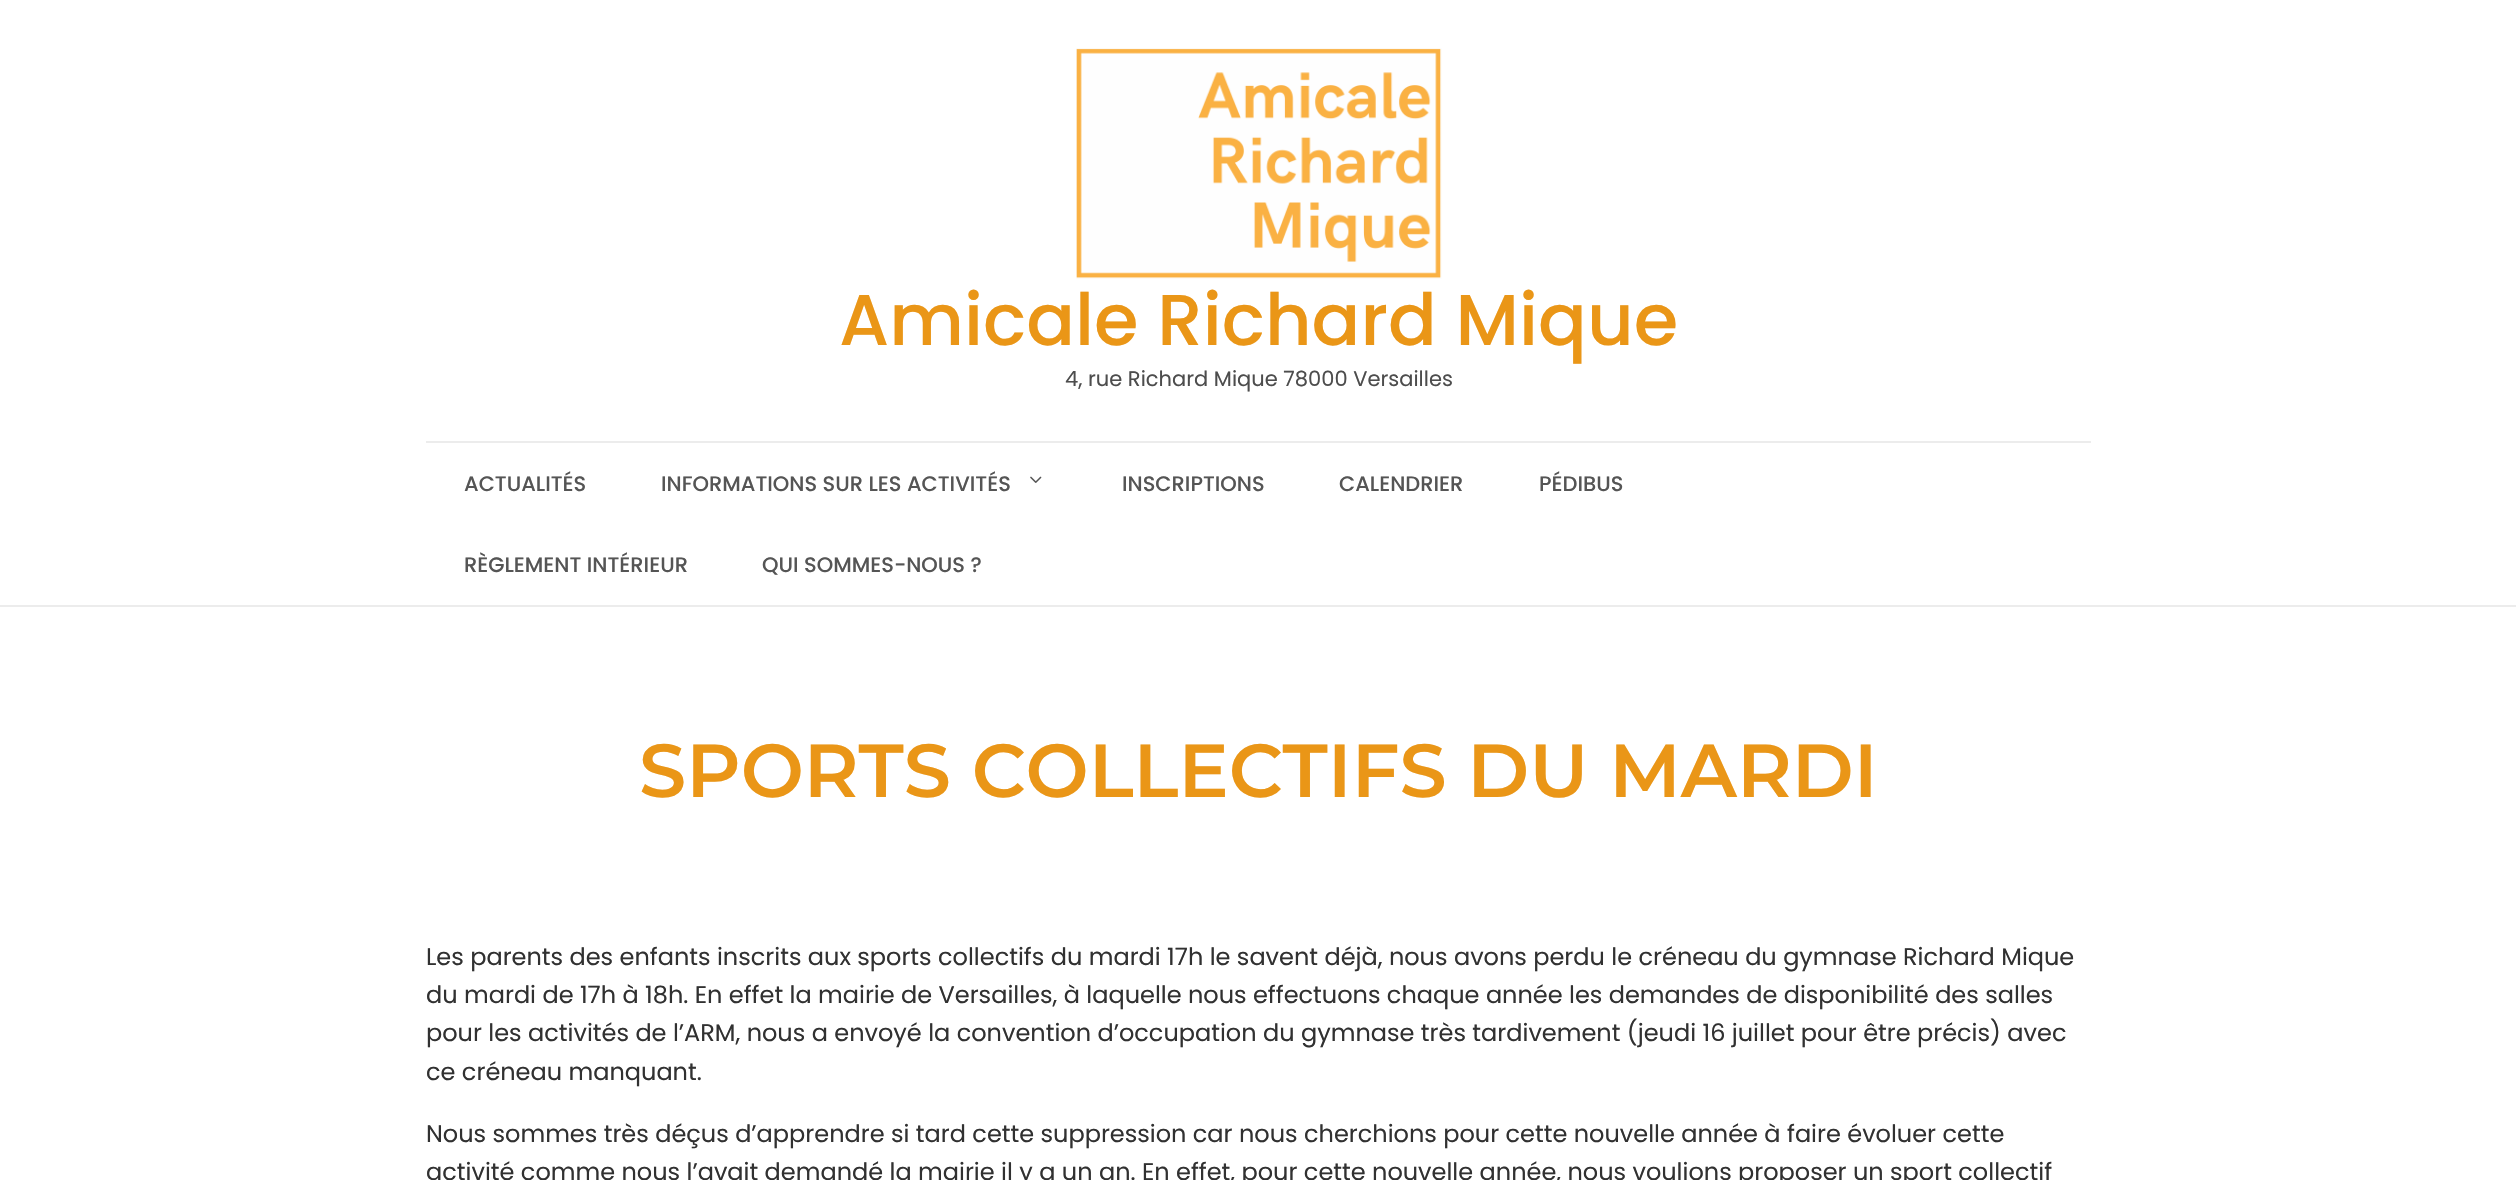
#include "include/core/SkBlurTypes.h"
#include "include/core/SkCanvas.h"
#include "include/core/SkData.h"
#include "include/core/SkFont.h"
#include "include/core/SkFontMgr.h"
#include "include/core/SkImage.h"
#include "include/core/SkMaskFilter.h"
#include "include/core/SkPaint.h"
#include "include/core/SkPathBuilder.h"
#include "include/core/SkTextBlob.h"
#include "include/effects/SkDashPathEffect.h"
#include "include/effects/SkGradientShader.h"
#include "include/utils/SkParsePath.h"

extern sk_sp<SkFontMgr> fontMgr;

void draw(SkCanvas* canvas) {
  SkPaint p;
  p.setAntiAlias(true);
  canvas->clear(SK_ColorWHITE);
  canvas->drawImageRect(SkImages::DeferredFromEncodedData(SkData::MakeFromFileName("images/1.png")), SkRect::MakeLTRB(1076, 48, 1442, 279), SkSamplingOptions());
  p.setColor(SkColorSetRGB(236, 236, 236));
  canvas->drawRect(SkRect::MakeLTRB(426, 441, 2091, 443), p);
  canvas->drawImageRect(SkImages::DeferredFromEncodedData(SkData::MakeFromFileName("images/2.png")), SkRect::MakeLTRB(1030, 476, 1042, 483), SkSamplingOptions());
  canvas->drawRect(SkRect::MakeLTRB(0, 605, 2516, 607), p);
  SkFont font1(fontMgr->matchFamilyStyle("Poppins", SkFontStyle(500, SkFontStyle::kNormal_Width, SkFontStyle::kUpright_Slant)), 72);
  font1.setSubpixel(true);
  p.setColor(SkColorSetRGB(234, 150, 23));
  canvas->drawString("Amicale Richard Mique", 839, 345, font1, p);
  SkFont font2(fontMgr->matchFamilyStyle("Poppins", SkFontStyle::Normal()), 21);
  font2.setSubpixel(true);
  p.setColor(SkColorSetRGB(77, 77, 77));
  canvas->drawString("4, rue Richard Mique 78000 Versailles", 1065, 386, font2, p);
  SkFont font3(fontMgr->matchFamilyStyle("Poppins", SkFontStyle(500, SkFontStyle::kNormal_Width, SkFontStyle::kUpright_Slant)), 21);
  font3.setSubpixel(true);
  p.setColor(SkColorSetRGB(85, 85, 85));
  canvas->drawString("ACTUALITÉS", 464, 491, font3, p);
  canvas->drawString("INFORMATIONS SUR LES ACTIVITÉS", 661, 491, font3, p);
  canvas->drawString("INSCRIPTIONS", 1122, 491, font3, p);
  canvas->drawString("CALENDRIER", 1339, 491, font3, p);
  canvas->drawString("PÉDIBUS", 1539, 491, font3, p);
  canvas->drawString("RÈGLEMENT INTÉRIEUR", 464, 572, font3, p);
  canvas->drawString("QUI SOMMES-NOUS ?", 762, 572, font3, p);
  SkFont font4(fontMgr->matchFamilyStyle("Montserrat", SkFontStyle(600, SkFontStyle::kNormal_Width, SkFontStyle::kUpright_Slant)), 75);
  font4.setSubpixel(true);
  p.setColor(SkColorSetRGB(234, 150, 23));
  canvas->drawString("SPORTS COLLECTIFS DU MARDI", 639, 797, font4, p);
  SkFont font5(fontMgr->matchFamilyStyle("Poppins", SkFontStyle::Normal()), 24);
  font5.setSubpixel(true);
  p.setColor(SkColorSetRGB(49, 49, 49));
  canvas->drawString("Les parents des enfants inscrits aux sports collectifs du mardi 17h le savent déjà, nous avons perdu le créneau du gymnase Richard Mique", 426, 965, font5, p);
  canvas->drawString("du mardi de 17h à 18h. En effet la mairie de Versailles, à laquelle nous effectuons chaque année les demandes de disponibilité des salles", 426, 1003, font5, p);
  canvas->drawString("pour les activités de l’ARM, nous a envoyé la convention d’occupation du gymnase très tardivement (jeudi 16 juillet pour être précis) avec", 426, 1041, font5, p);
  canvas->drawString("ce créneau manquant.", 426, 1080, font5, p);
  canvas->drawString("Nous sommes très déçus d’apprendre si tard cette suppression car nous cherchions pour cette nouvelle année à faire évoluer cette", 426, 1142, font5, p);
  canvas->drawString("activité comme nous l’avait demandé la mairie il y a un an. En effet, pour cette nouvelle année, nous voulions proposer un sport collectif", 426, 1180, font5, p);
}
